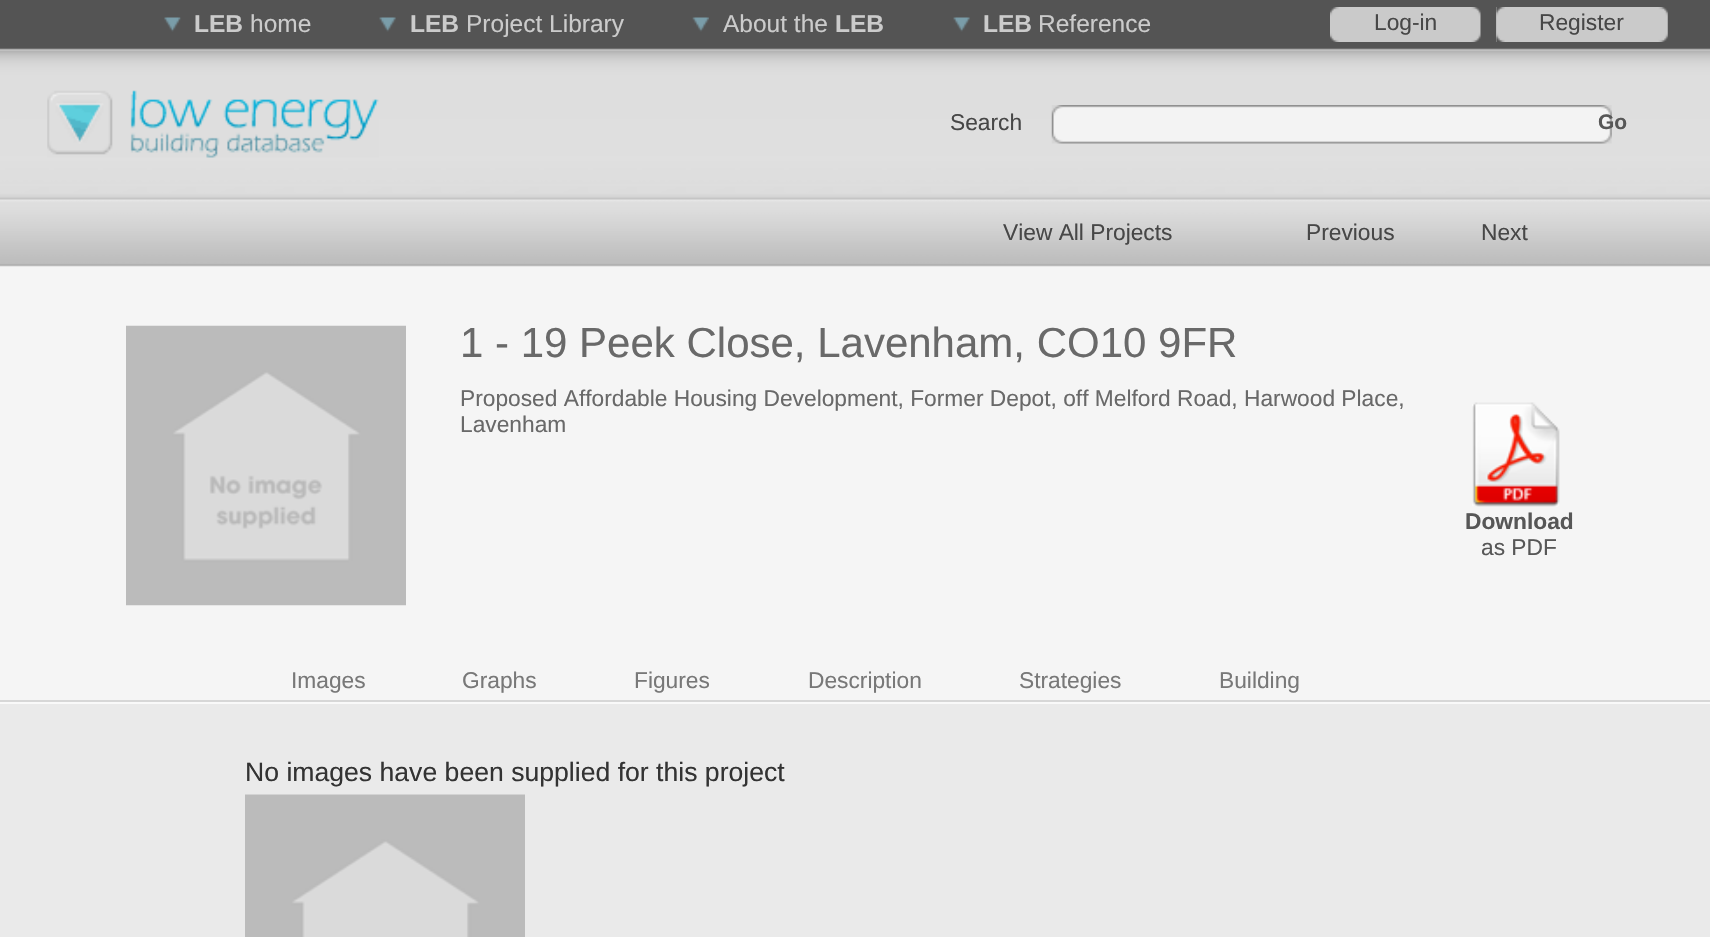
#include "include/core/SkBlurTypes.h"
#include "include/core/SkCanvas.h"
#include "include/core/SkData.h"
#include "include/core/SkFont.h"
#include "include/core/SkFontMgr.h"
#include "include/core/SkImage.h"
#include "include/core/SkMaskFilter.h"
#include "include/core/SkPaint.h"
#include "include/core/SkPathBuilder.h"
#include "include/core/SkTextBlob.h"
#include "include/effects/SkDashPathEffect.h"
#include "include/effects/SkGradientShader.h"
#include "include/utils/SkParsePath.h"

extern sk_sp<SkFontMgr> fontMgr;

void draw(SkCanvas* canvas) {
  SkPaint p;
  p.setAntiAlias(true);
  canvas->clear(SkColorSetRGB(245, 245, 245));
  canvas->drawImageRect(SkImages::DeferredFromEncodedData(SkData::MakeFromFileName("images/1.png")), SkRect::MakeLTRB(0, 0, 1710, 267), SkSamplingOptions());
  canvas->drawImageRect(SkImages::DeferredFromEncodedData(SkData::MakeFromFileName("images/2.png")), SkRect::MakeLTRB(164, 17, 181, 32), SkSamplingOptions());
  canvas->drawImageRect(SkImages::DeferredFromEncodedData(SkData::MakeFromFileName("images/3.png")), SkRect::MakeLTRB(379, 17, 396, 32), SkSamplingOptions());
  canvas->drawImageRect(SkImages::DeferredFromEncodedData(SkData::MakeFromFileName("images/4.png")), SkRect::MakeLTRB(692, 17, 709, 32), SkSamplingOptions());
  canvas->drawImageRect(SkImages::DeferredFromEncodedData(SkData::MakeFromFileName("images/3.png")), SkRect::MakeLTRB(953, 17, 970, 32), SkSamplingOptions());
  canvas->drawImageRect(SkImages::DeferredFromEncodedData(SkData::MakeFromFileName("images/5.png")), SkRect::MakeLTRB(1339, 7, 1481, 42), SkSamplingOptions());
  canvas->drawImageRect(SkImages::DeferredFromEncodedData(SkData::MakeFromFileName("images/6.png")), SkRect::MakeLTRB(1330, 7, 1339, 42), SkSamplingOptions());
  canvas->drawImageRect(SkImages::DeferredFromEncodedData(SkData::MakeFromFileName("images/7.png")), SkRect::MakeLTRB(1496, 7, 1668, 42), SkSamplingOptions());
  canvas->drawImageRect(SkImages::DeferredFromEncodedData(SkData::MakeFromFileName("images/8.png")), SkRect::MakeLTRB(1496, 7, 1505, 42), SkSamplingOptions());
  canvas->drawImageRect(SkImages::DeferredFromEncodedData(SkData::MakeFromFileName("images/9.png")), SkRect::MakeLTRB(47, 90, 379, 158), SkSamplingOptions());
  canvas->drawImageRect(SkImages::DeferredFromEncodedData(SkData::MakeFromFileName("images/10.png")), SkRect::MakeLTRB(1051, 105, 1612, 144), SkSamplingOptions());
  canvas->drawImageRect(SkImages::DeferredFromEncodedData(SkData::MakeFromFileName("images/11.png")), SkRect::MakeLTRB(126, 325, 406, 606), SkSamplingOptions());
  canvas->drawImageRect(SkImages::DeferredFromEncodedData(SkData::MakeFromFileName("images/12.png")), SkRect::MakeLTRB(1472, 402, 1560, 507), SkSamplingOptions());
  p.setColor(SkColorSetRGB(215, 215, 215));
  canvas->drawRect(SkRect::MakeLTRB(0, 700, 1710, 702), p);
  p.setColor(SkColorSetRGB(234, 234, 234));
  canvas->drawRect(SkRect::MakeLTRB(0, 704, 1710, 937), p);
  p.setColor(SkColorSetRGB(249, 249, 249));
  canvas->drawRect(SkRect::MakeLTRB(0, 702, 1710, 704), p);
  canvas->drawImageRect(SkImages::DeferredFromEncodedData(SkData::MakeFromFileName("images/13.png")), SkRect::MakeLTRB(245, 794, 525, 937), SkSamplingOptions());
  SkFont font1(fontMgr->matchFamilyStyle("Liberation Sans", SkFontStyle::Bold()), 24.5f);
  font1.setSubpixel(true);
  p.setColor(SkColorSetRGB(203, 203, 203));
  canvas->drawString("LEB", 194, 32, font1, p);
  SkFont font2(fontMgr->matchFamilyStyle("Liberation Sans", SkFontStyle::Normal()), 24.5f);
  font2.setSubpixel(true);
  canvas->drawString("home", 250, 32, font2, p);
  canvas->drawString("LEB", 410, 32, font1, p);
  canvas->drawString("Project Library", 466, 32, font2, p);
  canvas->drawString("About the", 723, 32, font2, p);
  canvas->drawString("LEB", 835, 32, font1, p);
  canvas->drawString("LEB", 983, 32, font1, p);
  canvas->drawString("Reference", 1038, 32, font2, p);
  SkFont font3(fontMgr->matchFamilyStyle("Liberation Sans", SkFontStyle::Normal()), 22.75f);
  font3.setSubpixel(true);
  p.setColor(SkColorSetRGB(71, 71, 71));
  canvas->drawString("Log-in", 1374, 30, font3, p);
  canvas->drawString("Register", 1539, 30, font3, p);
  canvas->drawString("Search", 950, 130, font3, p);
  SkFont font4(fontMgr->matchFamilyStyle("Liberation Sans", SkFontStyle::Bold()), 21);
  font4.setSubpixel(true);
  p.setColor(SkColorSetRGB(87, 87, 87));
  canvas->drawString("Go", 1598, 129, font4, p);
  p.setColor(SkColorSetRGB(71, 71, 71));
  canvas->drawString("View All Projects", 1003, 240, font3, p);
  canvas->drawString("Previous", 1306, 240, font3, p);
  canvas->drawString("Next", 1481, 240, font3, p);
  SkFont font5(fontMgr->matchFamilyStyle("Liberation Sans", SkFontStyle::Normal()), 42);
  font5.setSubpixel(true);
  p.setColor(SkColorSetRGB(105, 105, 105));
  canvas->drawString("1 - 19 Peek Close, Lavenham, CO10 9FR", 460, 357, font5, p);
  canvas->drawString("Proposed Affordable Housing Development, Former Depot, off Melford Road, Harwood Place,", 460, 406, font3, p);
  canvas->drawString("Lavenham", 460, 432, font3, p);
  SkFont font6(fontMgr->matchFamilyStyle("Liberation Sans", SkFontStyle::Bold()), 22.75f);
  font6.setSubpixel(true);
  p.setColor(SkColorSetRGB(87, 87, 87));
  canvas->drawString("Download", 1465, 529, font6, p);
  canvas->drawString("as PDF", 1481, 555, font3, p);
  p.setColor(SkColorSetRGB(120, 120, 120));
  canvas->drawString("Images", 291, 688, font3, p);
  canvas->drawString("Graphs", 462, 688, font3, p);
  canvas->drawString("Figures", 634, 688, font3, p);
  canvas->drawString("Description", 808, 688, font3, p);
  canvas->drawString("Strategies", 1019, 688, font3, p);
  canvas->drawString("Building", 1219, 688, font3, p);
  SkFont font7(fontMgr->matchFamilyStyle("Liberation Sans", SkFontStyle::Normal()), 26.6f);
  font7.setSubpixel(true);
  p.setColor(SkColorSetRGB(51, 51, 51));
  canvas->drawString("No images have been supplied for this project", 245, 781, font7, p);
}
